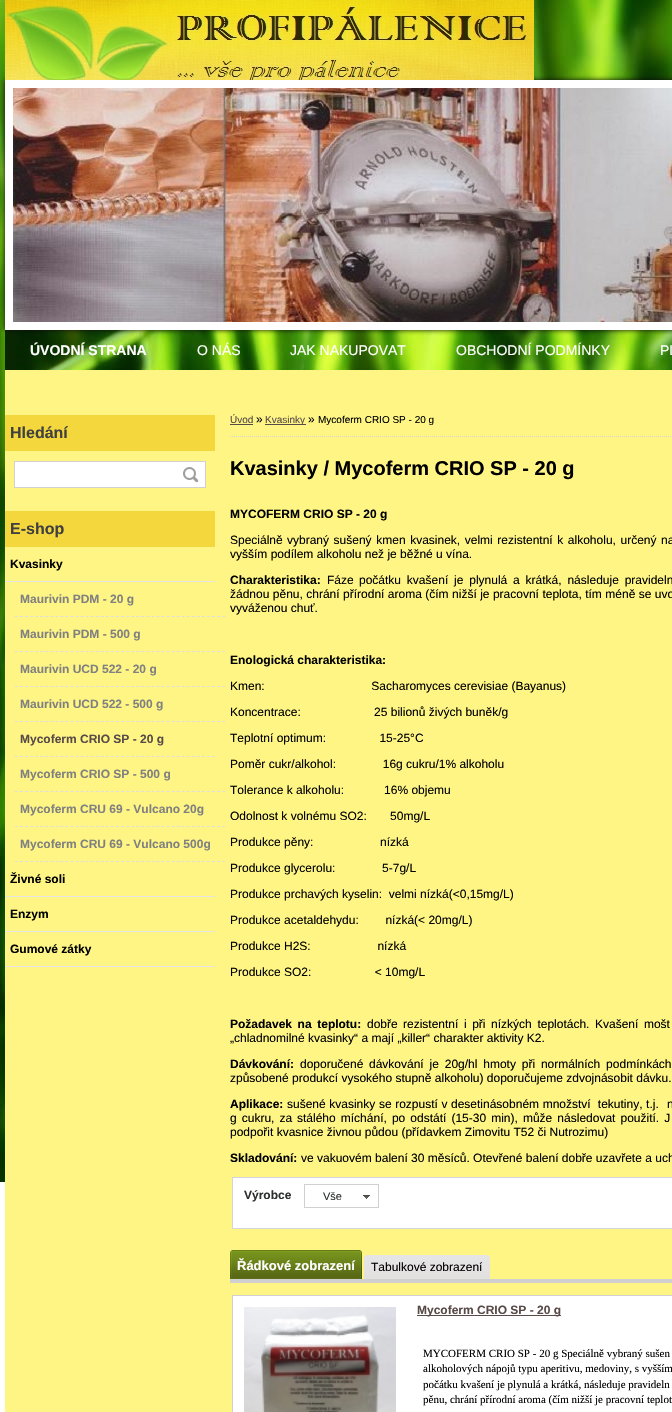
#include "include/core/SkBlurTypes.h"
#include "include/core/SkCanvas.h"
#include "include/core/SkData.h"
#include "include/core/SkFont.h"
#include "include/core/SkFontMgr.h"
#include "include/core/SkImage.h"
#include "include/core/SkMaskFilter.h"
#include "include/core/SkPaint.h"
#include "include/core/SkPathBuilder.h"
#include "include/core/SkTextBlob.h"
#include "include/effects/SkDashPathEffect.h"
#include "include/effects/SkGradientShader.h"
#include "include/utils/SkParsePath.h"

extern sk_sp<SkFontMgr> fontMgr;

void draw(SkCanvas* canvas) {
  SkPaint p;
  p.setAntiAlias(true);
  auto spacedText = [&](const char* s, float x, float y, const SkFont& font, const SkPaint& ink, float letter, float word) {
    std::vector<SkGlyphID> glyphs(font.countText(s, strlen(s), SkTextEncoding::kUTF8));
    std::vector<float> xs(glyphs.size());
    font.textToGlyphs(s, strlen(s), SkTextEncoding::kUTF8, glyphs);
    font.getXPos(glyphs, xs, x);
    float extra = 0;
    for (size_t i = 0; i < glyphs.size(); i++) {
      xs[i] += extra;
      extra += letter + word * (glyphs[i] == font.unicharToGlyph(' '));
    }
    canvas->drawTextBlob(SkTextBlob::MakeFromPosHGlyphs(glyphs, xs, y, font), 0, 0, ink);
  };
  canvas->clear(SK_ColorWHITE);
  canvas->drawImageRect(SkImages::DeferredFromEncodedData(SkData::MakeFromFileName("images/1.png")), SkRect::MakeLTRB(0, 0, 5, 1182), SkSamplingOptions());
  canvas->drawImageRect(SkImages::DeferredFromEncodedData(SkData::MakeFromFileName("images/2.png")), SkRect::MakeLTRB(5, 0, 672, 370), SkSamplingOptions());
  p.setColor(SkColorSetRGB(13, 13, 12));
  p.setMaskFilter(SkMaskFilter::MakeBlur(kNormal_SkBlurStyle, 2.5f));
  canvas->drawRect(SkRect::MakeLTRB(5, 80, 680, 330), p);
  p.setMaskFilter(nullptr);
  canvas->drawImageRect(SkImages::DeferredFromEncodedData(SkData::MakeFromFileName("images/3.png")), SkRect::MakeLTRB(13, 88, 672, 322), SkSamplingOptions());
  p.setStyle(SkPaint::kStroke_Style);
  p.setStrokeWidth(8);
  p.setColor(SK_ColorWHITE);
  canvas->drawRect(SkRect::MakeLTRB(9, 84, 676, 326), p);
  canvas->drawImageRect(SkImages::DeferredFromEncodedData(SkData::MakeFromFileName("images/4.png")), SkRect::MakeLTRB(5, 0, 534, 80), SkSamplingOptions());
  p.setStyle(SkPaint::kFill_Style);
  p.setColor(SkColorSetRGB(254, 245, 133));
  canvas->drawRect(SkRect::MakeLTRB(5, 370, 672, 1412), p);
  p.setColor(SkColorSetRGB(244, 215, 61));
  canvas->drawRect(SkRect::MakeLTRB(5, 415, 215, 451), p);
  p.setColor(SK_ColorWHITE);
  canvas->drawRect(SkRect::MakeLTRB(14.5f, 461.5f, 205.5f, 487.5f), p);
  p.setStyle(SkPaint::kStroke_Style);
  p.setStrokeWidth(1);
  p.setColor(SkColorSetRGB(208, 208, 208));
  canvas->drawRect(SkRect::MakeLTRB(14.5f, 461.5f, 205.5f, 487.5f), p);
  canvas->drawImageRect(SkImages::DeferredFromEncodedData(SkData::MakeFromFileName("images/5.png")), SkRect::MakeLTRB(183, 467, 199, 483), SkSamplingOptions());
  p.setStyle(SkPaint::kFill_Style);
  p.setColor(SkColorSetRGB(244, 215, 61));
  canvas->drawRect(SkRect::MakeLTRB(5, 511, 215, 547), p);
  p.setColor(SkColorSetRGB(229, 229, 230));
  canvas->drawRect(SkRect::MakeLTRB(5, 581, 215, 582), p);
  p.setStyle(SkPaint::kStroke_Style);
  p.setColor(SkColorSetRGB(224, 223, 221));
  p.setPathEffect(SkDashPathEffect::Make({{3, 2.05f}}, 0));
  canvas->drawPath(SkPathBuilder().moveTo(15, 616.5f).lineTo(225, 616.5f).detach(), p);
  p.setPathEffect(nullptr);
  p.setPathEffect(SkDashPathEffect::Make({{3, 2.05f}}, 0));
  canvas->drawPath(SkPathBuilder().moveTo(15, 651.5f).lineTo(225, 651.5f).detach(), p);
  p.setPathEffect(nullptr);
  p.setPathEffect(SkDashPathEffect::Make({{3, 2.05f}}, 0));
  canvas->drawPath(SkPathBuilder().moveTo(15, 686.5f).lineTo(225, 686.5f).detach(), p);
  p.setPathEffect(nullptr);
  p.setPathEffect(SkDashPathEffect::Make({{3, 2.05f}}, 0));
  canvas->drawPath(SkPathBuilder().moveTo(15, 721.5f).lineTo(225, 721.5f).detach(), p);
  p.setPathEffect(nullptr);
  p.setPathEffect(SkDashPathEffect::Make({{3, 2.05f}}, 0));
  canvas->drawPath(SkPathBuilder().moveTo(15, 756.5f).lineTo(215, 756.5f).detach(), p);
  p.setPathEffect(nullptr);
  p.setPathEffect(SkDashPathEffect::Make({{3, 2.05f}}, 0));
  canvas->drawPath(SkPathBuilder().moveTo(15, 791.5f).lineTo(225, 791.5f).detach(), p);
  p.setPathEffect(nullptr);
  p.setPathEffect(SkDashPathEffect::Make({{3, 2.05f}}, 0));
  canvas->drawPath(SkPathBuilder().moveTo(15, 826.5f).lineTo(225, 826.5f).detach(), p);
  p.setPathEffect(nullptr);
  p.setPathEffect(SkDashPathEffect::Make({{3, 2.05f}}, 0));
  canvas->drawPath(SkPathBuilder().moveTo(15, 861.5f).lineTo(225, 861.5f).detach(), p);
  p.setPathEffect(nullptr);
  p.setStyle(SkPaint::kFill_Style);
  p.setColor(SkColorSetRGB(229, 229, 230));
  canvas->drawRect(SkRect::MakeLTRB(5, 896, 215, 897), p);
  canvas->drawRect(SkRect::MakeLTRB(5, 931, 215, 932), p);
  canvas->drawRect(SkRect::MakeLTRB(5, 966, 215, 967), p);
  p.setStyle(SkPaint::kStroke_Style);
  p.setColor(SkColorSetRGB(211, 213, 218));
  p.setPathEffect(SkDashPathEffect::Make({{1, 1}}, 0));
  canvas->drawPath(SkPathBuilder().moveTo(230, 436.5f).lineTo(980, 436.5f).detach(), p);
  p.setPathEffect(nullptr);
  p.setStyle(SkPaint::kFill_Style);
  p.setColor(SkColorSetRGB(88, 74, 71));
  canvas->drawRect(SkRect::MakeLTRB(230, 424, 253, 425), p);
  canvas->drawRect(SkRect::MakeLTRB(265, 424, 306, 425), p);
  p.setColor(SK_ColorWHITE);
  canvas->drawRect(SkRect::MakeLTRB(232.5f, 1177.5f, 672.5f, 1228.5f), p);
  p.setStyle(SkPaint::kStroke_Style);
  p.setColor(SkColorSetRGB(211, 213, 218));
  canvas->drawRect(SkRect::MakeLTRB(232.5f, 1177.5f, 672.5f, 1228.5f), p);
  p.setColor(SkColorSetRGB(208, 208, 208));
  canvas->drawRect(SkRect::MakeLTRB(304.5f, 1184.5f, 378.5f, 1207.5f), p);
  canvas->drawImageRect(SkImages::DeferredFromEncodedData(SkData::MakeFromFileName("images/6.png")), SkRect::MakeLTRB(363, 1195, 370, 1199), SkSamplingOptions());
  canvas->drawImageRect(SkImages::DeferredFromEncodedData(SkData::MakeFromFileName("images/7.png")), SkRect::MakeLTRB(230, 1250, 360, 1279), SkSamplingOptions());
  canvas->drawImageRect(SkImages::DeferredFromEncodedData(SkData::MakeFromFileName("images/8.png")), SkRect::MakeLTRB(232, 1250, 362, 1279), SkSamplingOptions());
  canvas->drawImageRect(SkImages::DeferredFromEncodedData(SkData::MakeFromFileName("images/9.png")), SkRect::MakeLTRB(364, 1255, 488, 1279), SkSamplingOptions());
  canvas->drawImageRect(SkImages::DeferredFromEncodedData(SkData::MakeFromFileName("images/10.png")), SkRect::MakeLTRB(366, 1255, 490, 1279), SkSamplingOptions());
  p.setStyle(SkPaint::kFill_Style);
  canvas->drawRect(SkRect::MakeLTRB(230, 1279, 672, 1283), p);
  p.setColor(SK_ColorWHITE);
  canvas->drawRect(SkRect::MakeLTRB(232.5f, 1295.5f, 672.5f, 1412.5f), p);
  p.setStyle(SkPaint::kStroke_Style);
  p.setColor(SkColorSetRGB(208, 208, 208));
  canvas->drawRect(SkRect::MakeLTRB(232.5f, 1295.5f, 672.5f, 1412.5f), p);
  canvas->drawImageRect(SkImages::DeferredFromEncodedData(SkData::MakeFromFileName("images/11.png")), SkRect::MakeLTRB(244, 1307, 396, 1412), SkSamplingOptions());
  p.setStyle(SkPaint::kFill_Style);
  p.setColor(SkColorSetRGB(88, 74, 71));
  canvas->drawRect(SkRect::MakeLTRB(417, 1315, 561, 1316), p);
  SkFont font1(fontMgr->matchFamilyStyle("Liberation Sans", SkFontStyle::Bold()), 14);
  font1.setSubpixel(true);
  p.setColor(SK_ColorWHITE);
  canvas->drawString("ÚVODNÍ STRANA", 30, 355, font1, p);
  SkFont font2(fontMgr->matchFamilyStyle("Liberation Sans", SkFontStyle::Normal()), 14);
  font2.setSubpixel(true);
  canvas->drawString("O NÁS", 197, 355, font2, p);
  canvas->drawString("JAK NAKUPOVAT", 290, 355, font2, p);
  canvas->drawString("OBCHODNÍ PODMÍNKY", 456, 355, font2, p);
  canvas->drawString("PL", 660, 355, font2, p);
  SkFont font3(fontMgr->matchFamilyStyle("Liberation Sans", SkFontStyle::Bold()), 16);
  font3.setSubpixel(true);
  p.setColor(SkColorSetRGB(64, 64, 64));
  canvas->drawString("Hledání", 10, 438, font3, p);
  canvas->drawString("E-shop", 10, 534, font3, p);
  SkFont font4(fontMgr->matchFamilyStyle("Liberation Sans", SkFontStyle::Bold()), 12);
  font4.setSubpixel(true);
  p.setColor(SK_ColorBLACK);
  canvas->drawString("Kvasinky", 10, 568, font4, p);
  p.setColor(SkColorSetRGB(128, 128, 128));
  canvas->drawString("Maurivin PDM - 20 g", 20, 603, font4, p);
  canvas->drawString("Maurivin PDM - 500 g", 20, 638, font4, p);
  canvas->drawString("Maurivin UCD 522 - 20 g", 20, 673, font4, p);
  canvas->drawString("Maurivin UCD 522 - 500 g", 20, 708, font4, p);
  p.setColor(SkColorSetRGB(88, 74, 71));
  canvas->drawString("Mycoferm CRIO SP - 20 g", 20, 743, font4, p);
  p.setColor(SkColorSetRGB(128, 128, 128));
  canvas->drawString("Mycoferm CRIO SP - 500 g", 20, 778, font4, p);
  canvas->drawString("Mycoferm CRU 69 - Vulcano 20g", 20, 813, font4, p);
  canvas->drawString("Mycoferm CRU 69 - Vulcano 500g", 20, 848, font4, p);
  p.setColor(SK_ColorBLACK);
  canvas->drawString("Živné soli", 10, 883, font4, p);
  canvas->drawString("Enzym", 10, 918, font4, p);
  canvas->drawString("Gumové zátky", 10, 953, font4, p);
  SkFont font5(fontMgr->matchFamilyStyle("Liberation Sans", SkFontStyle::Normal()), 10);
  font5.setSubpixel(true);
  p.setColor(SkColorSetRGB(88, 74, 71));
  canvas->drawString("Úvod", 230, 423, font5, p);
  SkFont font6(fontMgr->matchFamilyStyle("Liberation Sans", SkFontStyle::Normal()), 12);
  font6.setSubpixel(true);
  p.setColor(SK_ColorBLACK);
  canvas->drawString("»", 256, 423, font6, p);
  p.setColor(SkColorSetRGB(88, 74, 71));
  canvas->drawString("Kvasinky", 265, 423, font5, p);
  p.setColor(SK_ColorBLACK);
  canvas->drawString("»", 308, 423, font6, p);
  canvas->drawString("Mycoferm CRIO SP - 20 g", 318, 423, font5, p);
  SkFont font7(fontMgr->matchFamilyStyle("Liberation Sans", SkFontStyle::Bold()), 20);
  font7.setSubpixel(true);
  canvas->drawString("Kvasinky / Mycoferm CRIO SP - 20 g", 230, 475, font7, p);
  canvas->drawString("MYCOFERM CRIO SP - 20 g", 230, 518, font4, p);
  canvas->drawString("Speciálně", 230, 544, font6, p);
  spacedText("vybraný sušený kmen kvasinek, velmi rezistentní k alkoholu, určený na", 287, 544, font6, p, 0, 1.25f);
  canvas->drawString("vyšším podílem alkoholu než je běžné u vína.", 230, 558, font6, p);
  canvas->drawString("Charakteristika:", 230, 584, font4, p);
  canvas->drawString("Fáze", 327, 584, font6, p);
  spacedText("počátku kvašení je plynulá a krátká, následuje pravideln", 359, 584, font6, p, 0, 2.5f);
  spacedText("žádnou pěnu, chrání přírodní aroma (čím nižší je pracovní teplota, tím méně se uvo", 230, 598, font6, p, 0, 0.1f);
  canvas->drawString("vyváženou chuť.", 230, 612, font6, p);
  canvas->drawString("Enologická charakteristika:", 230, 664, font4, p);
  canvas->drawString("Kmen:                                Sacharomyces cerevisiae (Bayanus)", 230, 690, font6, p);
  canvas->drawString("Koncentrace:                      25 bilionů živých buněk/g", 230, 716, font6, p);
  canvas->drawString("Teplotní optimum:                15-25°C", 230, 742, font6, p);
  canvas->drawString("Poměr cukr/alkohol:              16g cukru/1% alkoholu", 230, 768, font6, p);
  canvas->drawString("Tolerance k alkoholu:            16% objemu", 230, 794, font6, p);
  canvas->drawString("Odolnost k volnému SO2:       50mg/L", 230, 820, font6, p);
  canvas->drawString("Produkce pěny:                    nízká", 230, 846, font6, p);
  canvas->drawString("Produkce glycerolu:              5-7g/L", 230, 872, font6, p);
  canvas->drawString("Produkce prchavých kyselin:  velmi nízká(<0,15mg/L)", 230, 898, font6, p);
  canvas->drawString("Produkce acetaldehydu:        nízká(< 20mg/L)", 230, 924, font6, p);
  canvas->drawString("Produkce H2S:                    nízká", 230, 950, font6, p);
  canvas->drawString("Produkce SO2:                   < 10mg/L", 230, 976, font6, p);
  spacedText("Požadavek na teplotu:", 230, 1028, font4, p, 0, 2.25f);
  canvas->drawString("dobře", 367, 1028, font6, p);
  spacedText("rezistentní i při nízkých teplotách. Kvašení mošt", 403, 1028, font6, p, 0, 2.25f);
  canvas->drawString("„chladnomilné kvasinky“ a mají „killer“ charakter aktivity K2.", 230, 1042, font6, p);
  canvas->drawString("Dávkování:", 230, 1068, font4, p);
  canvas->drawString("doporučené", 300, 1068, font6, p);
  spacedText("dávkování je 20g/hl hmoty při normálních podmínkách", 369, 1068, font6, p, 0, 2.5f);
  canvas->drawString("způsobené produkcí vysokého stupně alkoholu) doporučujeme zdvojnásobit dávku.", 230, 1082, font6, p);
  canvas->drawString("Aplikace:", 230, 1108, font4, p);
  spacedText("sušené kvasinky se rozpustí v desetinásobném množství  tekutiny, t.j.", 287, 1108, font6, p, 0, 0.25f);
  spacedText("n", 667, 1108, font6, p, 0, 0.25f);
  spacedText("g cukru, za", 230, 1122, font6, p, 0, 1.75f);
  spacedText("stálého míchání, po odstátí (15-30 min), může následovat použití. J", 297, 1122, font6, p, 0, 1.75f);
  canvas->drawString("podpořit kvasnice živnou půdou (přídavkem Zimovitu T52 či Nutrozimu)", 230, 1136, font6, p);
  canvas->drawString("Skladování:", 230, 1162, font4, p);
  canvas->drawString("ve vakuovém balení 30 měsíců. Otevřené balení dobře uzavřete a uch", 301, 1162, font6, p);
  p.setColor(SkColorSetRGB(46, 47, 48));
  canvas->drawString("Výrobce", 244, 1199, font4, p);
  SkFont font8(fontMgr->matchFamilyStyle("Liberation Sans", SkFontStyle::Normal()), 11);
  font8.setSubpixel(true);
  canvas->drawString("Vše", 323, 1200, font8, p);
  SkFont font9(fontMgr->matchFamilyStyle("Liberation Sans", SkFontStyle::Bold()), 13);
  font9.setSubpixel(true);
  p.setColor(SK_ColorWHITE);
  canvas->drawString("Řádkové zobrazení", 237, 1270, font9, p);
  p.setColor(SK_ColorBLACK);
  canvas->drawString("Tabulkové zobrazení", 371, 1271, font6, p);
  p.setColor(SkColorSetRGB(88, 74, 71));
  canvas->drawString("Mycoferm CRIO SP - 20 g", 417, 1314, font4, p);
  SkFont font10(fontMgr->matchFamilyStyle("Liberation Serif", SkFontStyle::Normal()), 11);
  font10.setSubpixel(true);
  p.setColor(SK_ColorBLACK);
  canvas->drawString("MYCOFERM CRIO SP - 20 g Speciálně vybraný sušen", 423, 1357, font10, p);
  canvas->drawString("alkoholových nápojů typu aperitivu, medoviny, s vyšším", 423, 1372, font10, p);
  canvas->drawString("počátku kvašení je plynulá a krátká, následuje pravideln", 423, 1388, font10, p);
  canvas->drawString("pěnu, chrání přírodní aroma (čím nižší je pracovní teplot", 423, 1403, font10, p);
}
